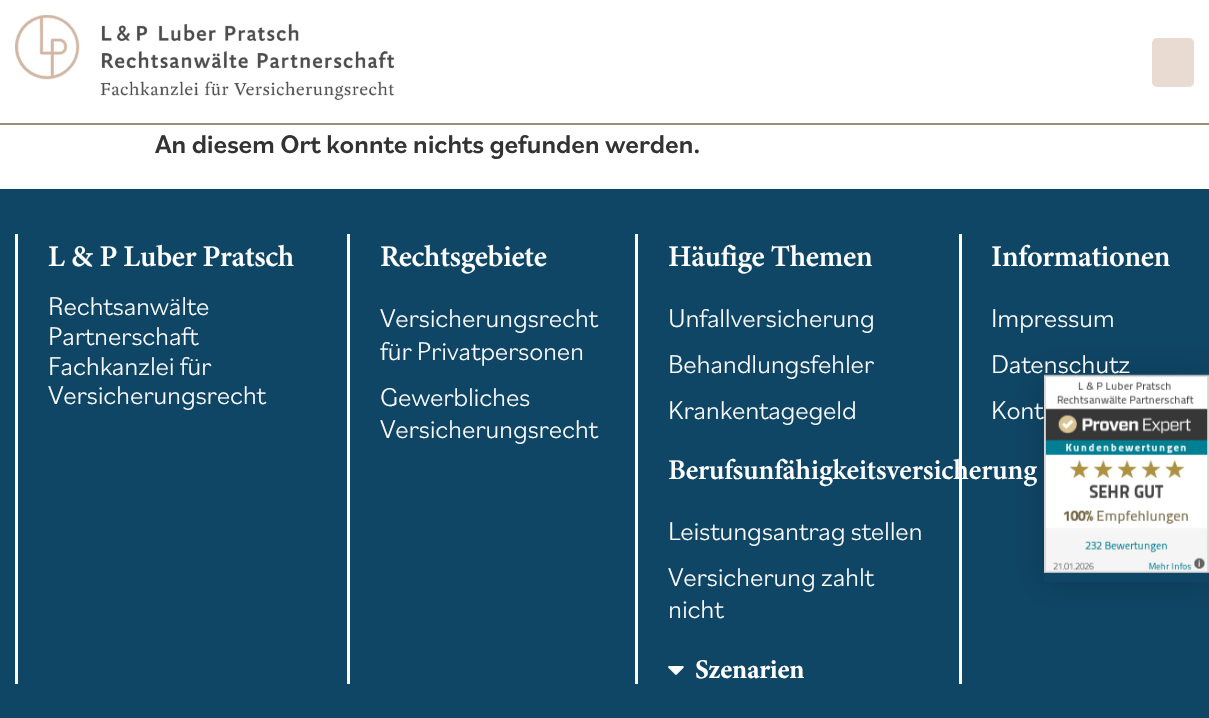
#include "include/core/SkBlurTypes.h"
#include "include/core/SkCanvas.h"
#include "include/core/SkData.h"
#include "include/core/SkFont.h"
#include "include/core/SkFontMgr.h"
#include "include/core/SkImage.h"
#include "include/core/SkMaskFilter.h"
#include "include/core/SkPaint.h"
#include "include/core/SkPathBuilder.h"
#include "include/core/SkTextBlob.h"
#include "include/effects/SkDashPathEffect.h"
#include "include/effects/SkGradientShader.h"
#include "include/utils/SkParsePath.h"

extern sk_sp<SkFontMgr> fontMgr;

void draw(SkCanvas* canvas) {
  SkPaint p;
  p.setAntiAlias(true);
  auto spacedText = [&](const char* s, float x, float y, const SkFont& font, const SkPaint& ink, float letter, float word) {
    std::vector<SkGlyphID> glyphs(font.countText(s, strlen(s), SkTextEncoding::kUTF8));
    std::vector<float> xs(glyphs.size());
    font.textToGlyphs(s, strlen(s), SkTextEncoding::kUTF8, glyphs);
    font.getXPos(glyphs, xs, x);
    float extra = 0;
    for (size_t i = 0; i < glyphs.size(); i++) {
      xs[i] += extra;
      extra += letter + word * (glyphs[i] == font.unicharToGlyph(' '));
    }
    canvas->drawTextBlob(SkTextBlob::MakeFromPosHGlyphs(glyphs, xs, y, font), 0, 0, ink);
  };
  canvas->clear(SK_ColorWHITE);
  p.setColor(SkColorSetRGB(159, 140, 126));
  canvas->drawRect(SkRect::MakeLTRB(0, 123, 1209, 125), p);
  canvas->drawImageRect(SkImages::DeferredFromEncodedData(SkData::MakeFromFileName("images/1.png")), SkRect::MakeLTRB(15, 15, 395, 100), SkSamplingOptions());
  p.setColor(SkColorSetRGB(233, 219, 209));
  canvas->drawRoundRect(SkRect::MakeLTRB(1152, 38, 1194, 87), 5, 5, p);
  p.setColor(SkColorSetRGB(15, 69, 101));
  canvas->drawRect(SkRect::MakeLTRB(0, 189, 1209, 718), p);
  p.setColor(SK_ColorWHITE);
  canvas->drawRect(SkRect::MakeLTRB(15, 234, 18, 684), p);
  canvas->drawRect(SkRect::MakeLTRB(347, 234, 350, 684), p);
  canvas->drawRect(SkRect::MakeLTRB(635, 234, 638, 684), p);
  canvas->drawImageRect(SkImages::DeferredFromEncodedData(SkData::MakeFromFileName("images/2.png")), SkRect::MakeLTRB(668, 666, 684, 675), SkSamplingOptions());
  canvas->drawRect(SkRect::MakeLTRB(959, 234, 962, 684), p);
  canvas->save();
  canvas->clipPath(SkPathBuilder(SkPathFillType::kEvenOdd).moveTo(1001, 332).lineTo(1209, 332).lineTo(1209, 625).lineTo(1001, 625).close().moveTo(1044, 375).lineTo(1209, 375).lineTo(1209, 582).lineTo(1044, 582).close().detach(), true);
  p.setColor(SkColorSetARGB(41, 0, 0, 0));
  p.setMaskFilter(SkMaskFilter::MakeBlur(kNormal_SkBlurStyle, 14));
  canvas->drawRect(SkRect::MakeLTRB(1044, 375, 1209, 582), p);
  p.setMaskFilter(nullptr);
  canvas->restore();
  canvas->drawImageRect(SkImages::DeferredFromEncodedData(SkData::MakeFromFileName("images/3.png")), SkRect::MakeLTRB(1044, 374, 1209, 573), SkSamplingOptions());
  SkFont font1(fontMgr->matchFamilyStyle("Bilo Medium", SkFontStyle(500, SkFontStyle::kNormal_Width, SkFontStyle::kUpright_Slant)), 27);
  font1.setSubpixel(true);
  p.setColor(SkColorSetRGB(51, 51, 51));
  spacedText("An diesem Ort konnte nichts gefunden werden.", 155, 153, font1, p, -0.3f, 0);
  SkFont font2(fontMgr->matchFamilyStyle("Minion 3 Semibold", SkFontStyle(600, SkFontStyle::kNormal_Width, SkFontStyle::kUpright_Slant)), 30);
  font2.setSubpixel(true);
  p.setColor(SK_ColorWHITE);
  spacedText("L & P Luber Pratsch", 48, 266, font2, p, -0.3f, 0);
  SkFont font3(fontMgr->matchFamilyStyle("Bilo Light", SkFontStyle(300, SkFontStyle::kNormal_Width, SkFontStyle::kUpright_Slant)), 27);
  font3.setSubpixel(true);
  spacedText("Rechtsanwälte", 48, 315, font3, p, -0.3f, 0);
  spacedText("Partnerschaft", 48, 345, font3, p, -0.3f, 0);
  spacedText("Fachkanzlei für", 48, 375, font3, p, -0.3f, 0);
  spacedText("Versicherungsrecht", 48, 404, font3, p, -0.3f, 0);
  spacedText("Rechtsgebiete", 380, 266, font2, p, -0.3f, 0);
  spacedText("Versicherungsrecht", 380, 327, font3, p, -0.3f, 0);
  spacedText("für Privatpersonen", 380, 360, font3, p, -0.3f, 0);
  spacedText("Gewerbliches", 380, 406, font3, p, -0.3f, 0);
  spacedText("Versicherungsrecht", 380, 438, font3, p, -0.3f, 0);
  spacedText("Häufige Themen", 668, 266, font2, p, -0.3f, 0);
  spacedText("Unfallversicherung", 668, 327, font3, p, -0.3f, 0);
  spacedText("Behandlungsfehler", 668, 373, font3, p, -0.3f, 0);
  spacedText("Krankentagegeld", 668, 419, font3, p, -0.3f, 0);
  SkFont font4(fontMgr->matchFamilyStyle("Minion 3 Semibold", SkFontStyle(600, SkFontStyle::kNormal_Width, SkFontStyle::kUpright_Slant)), 28.5f);
  font4.setSubpixel(true);
  spacedText("Berufsunfähigkeitsversicherung", 668, 479, font4, p, -0.15f, 0);
  spacedText("Leistungsantrag stellen", 668, 540, font3, p, -0.3f, 0);
  spacedText("Versicherung zahlt", 668, 586, font3, p, -0.3f, 0);
  spacedText("nicht", 668, 618, font3, p, -0.3f, 0);
  SkFont font5(fontMgr->matchFamilyStyle("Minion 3", SkFontStyle::Bold()), 27);
  font5.setSubpixel(true);
  spacedText("Szenarien", 695, 678, font5, p, -0.3f, 0);
  spacedText("Informationen", 991, 266, font2, p, -0.3f, 0);
  spacedText("Impressum", 991, 327, font3, p, -0.3f, 0);
  spacedText("Datenschutz", 991, 373, font3, p, -0.3f, 0);
  spacedText("Kont", 991, 419, font3, p, -0.3f, 0);
}
